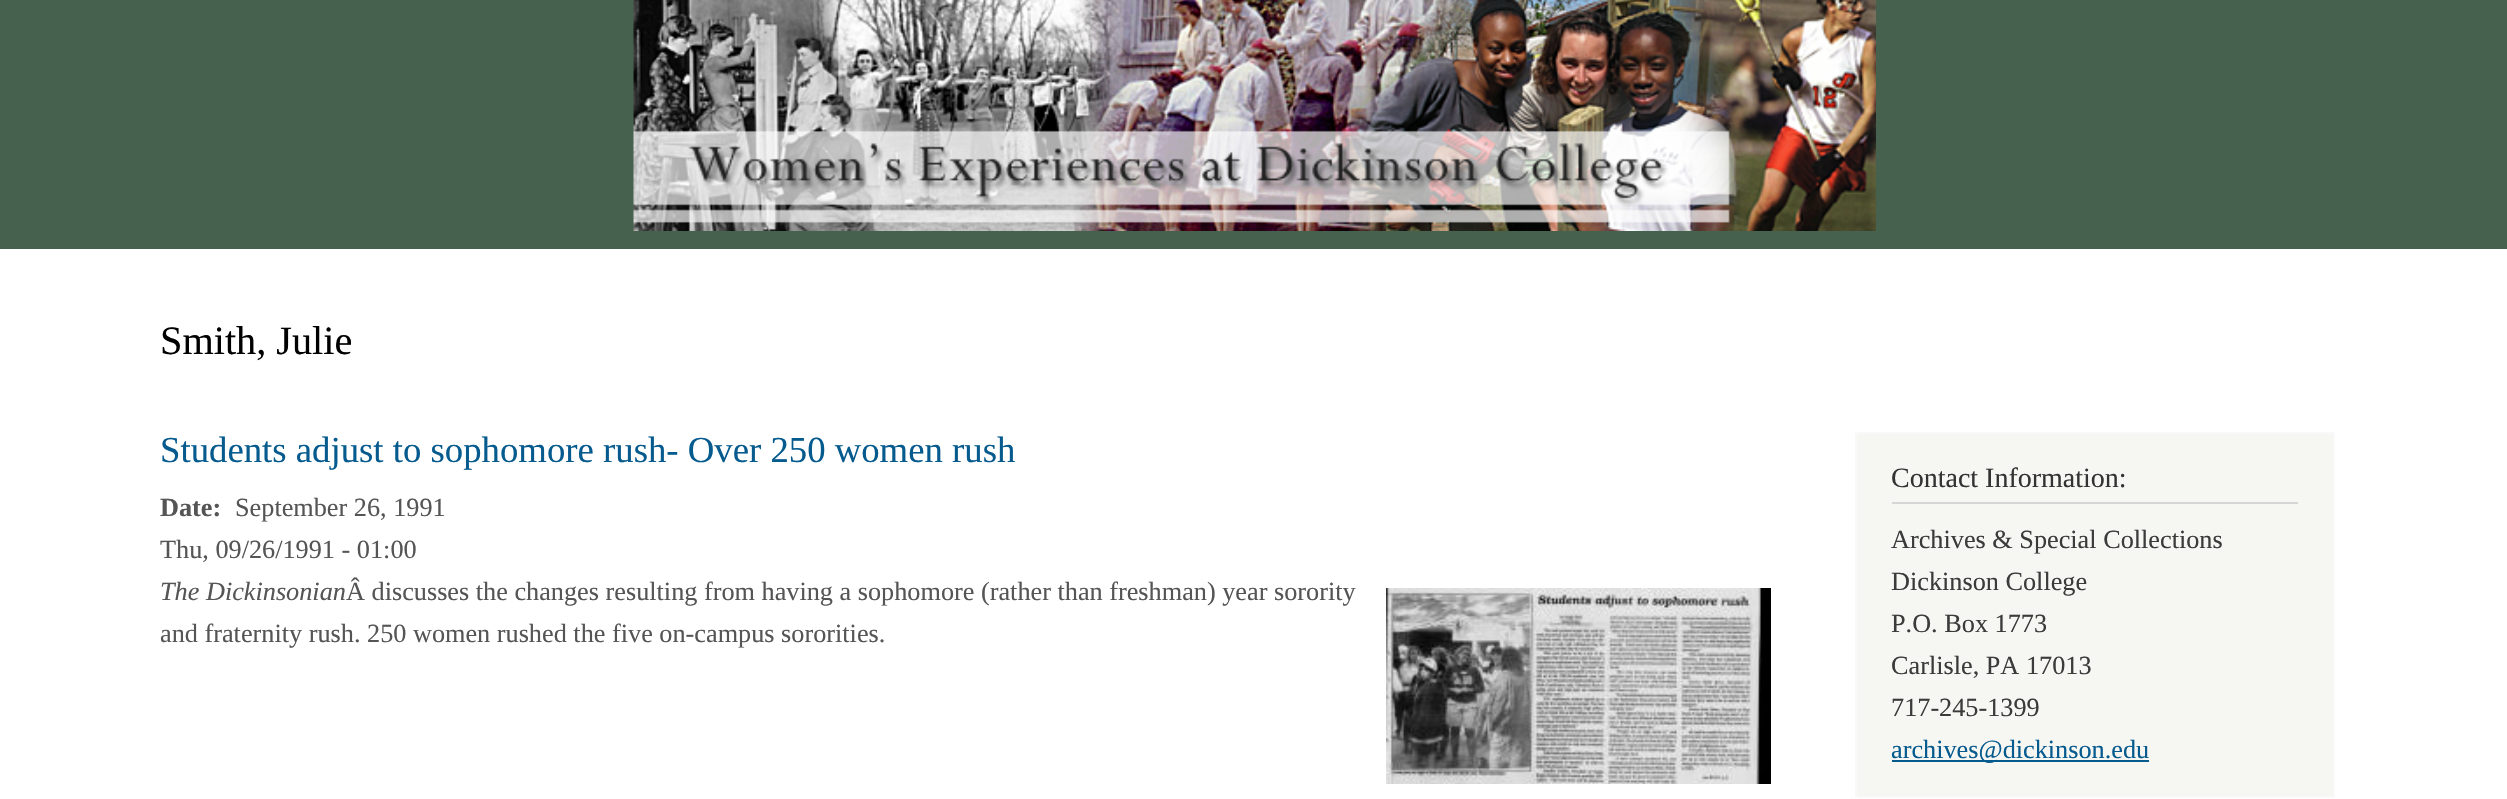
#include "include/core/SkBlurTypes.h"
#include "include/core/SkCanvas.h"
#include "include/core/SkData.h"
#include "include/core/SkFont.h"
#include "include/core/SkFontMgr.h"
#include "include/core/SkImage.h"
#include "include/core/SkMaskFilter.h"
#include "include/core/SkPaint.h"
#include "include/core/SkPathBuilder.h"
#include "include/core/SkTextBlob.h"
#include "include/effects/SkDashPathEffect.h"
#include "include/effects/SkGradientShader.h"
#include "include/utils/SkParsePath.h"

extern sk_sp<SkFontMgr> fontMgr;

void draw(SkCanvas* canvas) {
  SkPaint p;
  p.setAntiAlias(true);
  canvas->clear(SK_ColorWHITE);
  p.setColor(SkColorSetRGB(70, 97, 77));
  canvas->drawRect(SkRect::MakeLTRB(0, 0, 2507, 249), p);
  canvas->drawImageRect(SkImages::DeferredFromEncodedData(SkData::MakeFromFileName("images/1.png")), SkRect::MakeLTRB(633, 0, 1876, 231), SkSamplingOptions());
  canvas->drawImageRect(SkImages::DeferredFromEncodedData(SkData::MakeFromFileName("images/2.png")), SkRect::MakeLTRB(1386, 588, 1771, 784), SkSamplingOptions());
  p.setColor(SkColorSetRGB(246, 246, 242));
  canvas->drawRect(SkRect::MakeLTRB(1856, 433, 2334, 797), p);
  p.setStyle(SkPaint::kStroke_Style);
  p.setStrokeWidth(2);
  p.setColor(SkColorSetRGB(249, 249, 249));
  canvas->drawRect(SkRect::MakeLTRB(1856, 433, 2334, 797), p);
  p.setStyle(SkPaint::kFill_Style);
  p.setColor(SkColorSetRGB(214, 214, 214));
  canvas->drawRect(SkRect::MakeLTRB(1892, 502, 2298, 504), p);
  p.setColor(SkColorSetRGB(5, 90, 142));
  canvas->drawRect(SkRect::MakeLTRB(1892, 760, 2149, 762), p);
  SkFont font1(fontMgr->matchFamilyStyle("Liberation Serif", SkFontStyle::Normal()), 40.25f);
  font1.setSubpixel(true);
  p.setColor(SK_ColorBLACK);
  canvas->drawString("Smith, Julie", 160, 354, font1, p);
  SkFont font2(fontMgr->matchFamilyStyle("Liberation Serif", SkFontStyle::Normal()), 36.75f);
  font2.setSubpixel(true);
  p.setColor(SkColorSetRGB(5, 90, 142));
  canvas->drawString("Students adjust to sophomore rush- Over 250 women rush", 160, 462, font2, p);
  SkFont font3(fontMgr->matchFamilyStyle("Liberation Serif", SkFontStyle::Bold()), 26.25f);
  font3.setSubpixel(true);
  p.setColor(SkColorSetRGB(85, 85, 85));
  canvas->drawString("Date:", 160, 516, font3, p);
  SkFont font4(fontMgr->matchFamilyStyle("Liberation Serif", SkFontStyle::Normal()), 26.25f);
  font4.setSubpixel(true);
  canvas->drawString("September 26, 1991", 235, 516, font4, p);
  canvas->drawString("Thu, 09/26/1991 - 01:00", 160, 558, font4, p);
  SkFont font5(fontMgr->matchFamilyStyle("Liberation Serif", SkFontStyle::Italic()), 26.25f);
  font5.setSubpixel(true);
  canvas->drawString("The Dickinsonian", 160, 600, font5, p);
  canvas->drawString("Â discusses the changes resulting from having a sophomore (rather than freshman) year sorority", 346, 600, font4, p);
  canvas->drawString("and fraternity rush. 250 women rushed the five on-campus sororities.", 160, 642, font4, p);
  SkFont font6(fontMgr->matchFamilyStyle("Liberation Serif", SkFontStyle::Normal()), 28);
  font6.setSubpixel(true);
  p.setColor(SkColorSetRGB(51, 51, 51));
  canvas->drawString("Contact Information:", 1891, 487, font6, p);
  p.setColor(SkColorSetRGB(59, 59, 59));
  canvas->drawString("Archives & Special Collections", 1891, 548, font4, p);
  canvas->drawString("Dickinson College", 1891, 590, font4, p);
  canvas->drawString("P.O. Box 1773", 1891, 632, font4, p);
  canvas->drawString("Carlisle, PA 17013", 1891, 674, font4, p);
  canvas->drawString("717-245-1399", 1891, 716, font4, p);
  p.setColor(SkColorSetRGB(5, 90, 142));
  canvas->drawString("archives@dickinson.edu", 1891, 758, font4, p);
}
